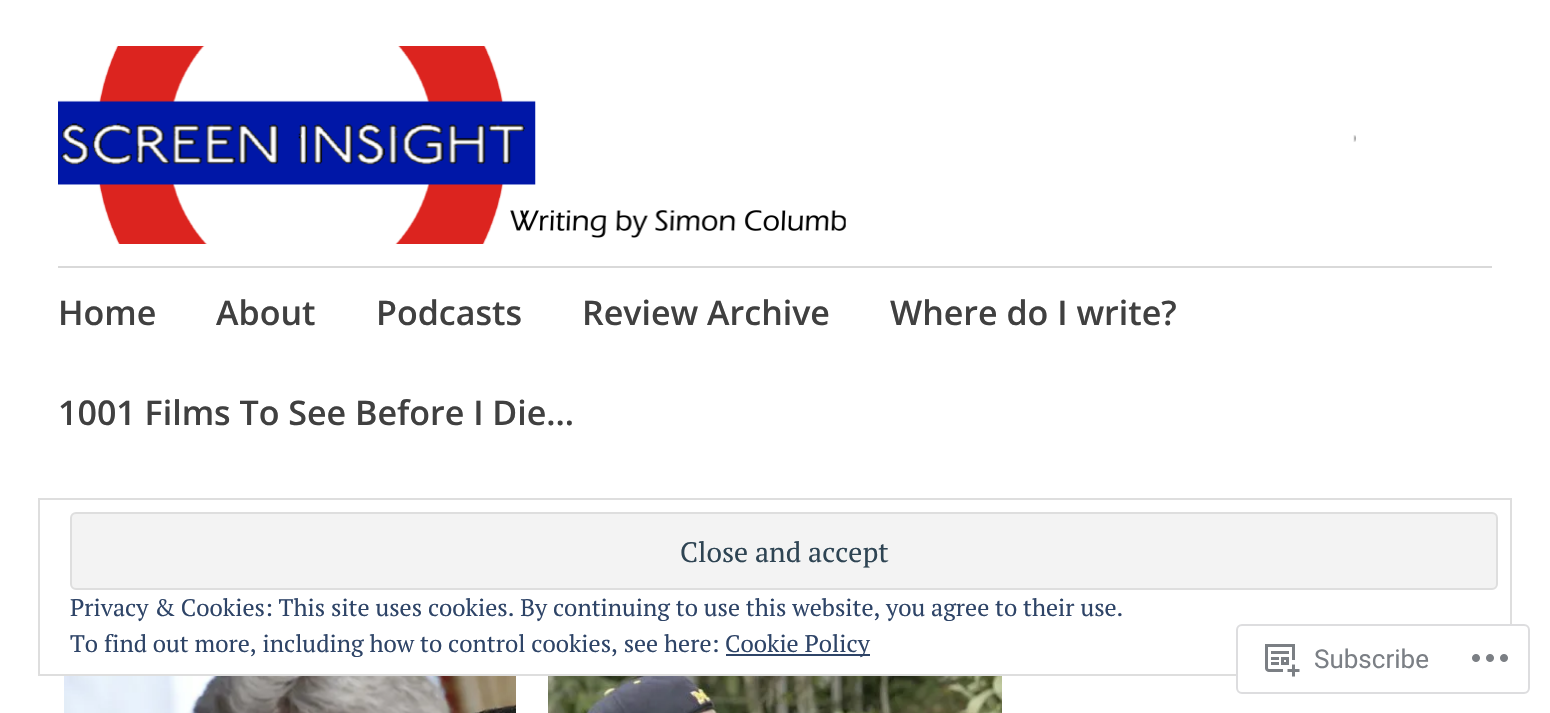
#include "include/core/SkBlurTypes.h"
#include "include/core/SkCanvas.h"
#include "include/core/SkData.h"
#include "include/core/SkFont.h"
#include "include/core/SkFontMgr.h"
#include "include/core/SkImage.h"
#include "include/core/SkMaskFilter.h"
#include "include/core/SkPaint.h"
#include "include/core/SkPathBuilder.h"
#include "include/core/SkTextBlob.h"
#include "include/effects/SkDashPathEffect.h"
#include "include/effects/SkGradientShader.h"
#include "include/utils/SkParsePath.h"

extern sk_sp<SkFontMgr> fontMgr;

void draw(SkCanvas* canvas) {
  SkPaint p;
  p.setAntiAlias(true);
  canvas->clear(SK_ColorWHITE);
  canvas->drawImageRect(SkImages::DeferredFromEncodedData(SkData::MakeFromFileName("images/1.png")), SkRect::MakeLTRB(58, 46, 1356, 244), SkSamplingOptions());
  p.setColor(SkColorSetRGB(217, 217, 217));
  canvas->drawRect(SkRect::MakeLTRB(58, 266, 1492, 268), p);
  canvas->drawImageRect(SkImages::DeferredFromEncodedData(SkData::MakeFromFileName("images/2.png")), SkRect::MakeLTRB(64, 676, 516, 713), SkSamplingOptions());
  canvas->drawImageRect(SkImages::DeferredFromEncodedData(SkData::MakeFromFileName("images/3.png")), SkRect::MakeLTRB(548, 676, 1002, 713), SkSamplingOptions());
  p.setStyle(SkPaint::kStroke_Style);
  p.setStrokeWidth(2);
  p.setColor(SkColorSetRGB(222, 222, 222));
  canvas->drawRect(SkRect::MakeLTRB(39, 499, 1511, 675), p);
  p.setStyle(SkPaint::kFill_Style);
  p.setColor(SkColorSetRGB(243, 243, 243));
  canvas->drawRoundRect(SkRect::MakeLTRB(71, 513, 1497, 589), 5, 5, p);
  p.setStyle(SkPaint::kStroke_Style);
  p.setColor(SkColorSetRGB(222, 222, 222));
  canvas->drawRoundRect(SkRect::MakeLTRB(71, 513, 1497, 589), 5, 5, p);
  p.setStyle(SkPaint::kFill_Style);
  p.setColor(SkColorSetRGB(46, 68, 103));
  canvas->drawRect(SkRect::MakeLTRB(726, 654, 870, 656), p);
  p.setColor(SkColorSetARGB(250, 255, 255, 255));
  canvas->drawRoundRect(SkRect::MakeLTRB(1237, 625, 1529, 693), 5, 5, p);
  p.setStyle(SkPaint::kStroke_Style);
  p.setColor(SkColorSetRGB(221, 221, 223));
  canvas->drawRoundRect(SkRect::MakeLTRB(1237, 625, 1529, 693), 5, 5, p);
  canvas->drawImageRect(SkImages::DeferredFromEncodedData(SkData::MakeFromFileName("images/4.png")), SkRect::MakeLTRB(1265, 644, 1300, 677), SkSamplingOptions());
  canvas->drawImageRect(SkImages::DeferredFromEncodedData(SkData::MakeFromFileName("images/5.png")), SkRect::MakeLTRB(1472, 654, 1508, 662), SkSamplingOptions());
  SkFont font1(fontMgr->matchFamilyStyle("Open Sans", SkFontStyle(600, SkFontStyle::kNormal_Width, SkFontStyle::kUpright_Slant)), 34);
  font1.setSubpixel(true);
  p.setStyle(SkPaint::kFill_Style);
  p.setColor(SkColorSetRGB(64, 64, 64));
  canvas->drawString("Home", 58, 325, font1, p);
  canvas->drawString("About", 216, 325, font1, p);
  canvas->drawString("Podcasts", 376, 325, font1, p);
  canvas->drawString("Review Archive", 582, 325, font1, p);
  canvas->drawString("Where do I write?", 890, 325, font1, p);
  canvas->drawString("1001 Films To See Before I Die…", 58, 425, font1, p);
  SkFont font2(fontMgr->matchFamilyStyle("PT Serif", SkFontStyle::Normal()), 28);
  font2.setSubpixel(true);
  p.setColor(SkColorSetRGB(46, 68, 83));
  canvas->drawString("Close and accept", 680, 562, font2, p);
  SkFont font3(fontMgr->matchFamilyStyle("PT Serif", SkFontStyle::Normal()), 24);
  font3.setSubpixel(true);
  p.setColor(SkColorSetRGB(46, 68, 103));
  canvas->drawString("Privacy & Cookies: This site uses cookies. By continuing to use this website, you agree to their use.", 70, 616, font3, p);
  canvas->drawString("To find out more, including how to control cookies, see here:", 70, 652, font3, p);
  canvas->drawString("Cookie Policy", 725, 652, font3, p);
  SkFont font4(fontMgr->matchFamilyStyle("Roboto", SkFontStyle::Normal()), 26);
  font4.setSubpixel(true);
  p.setColor(SkColorSetRGB(123, 127, 133));
  canvas->drawString("Subscribe", 1314, 668, font4, p);
}
